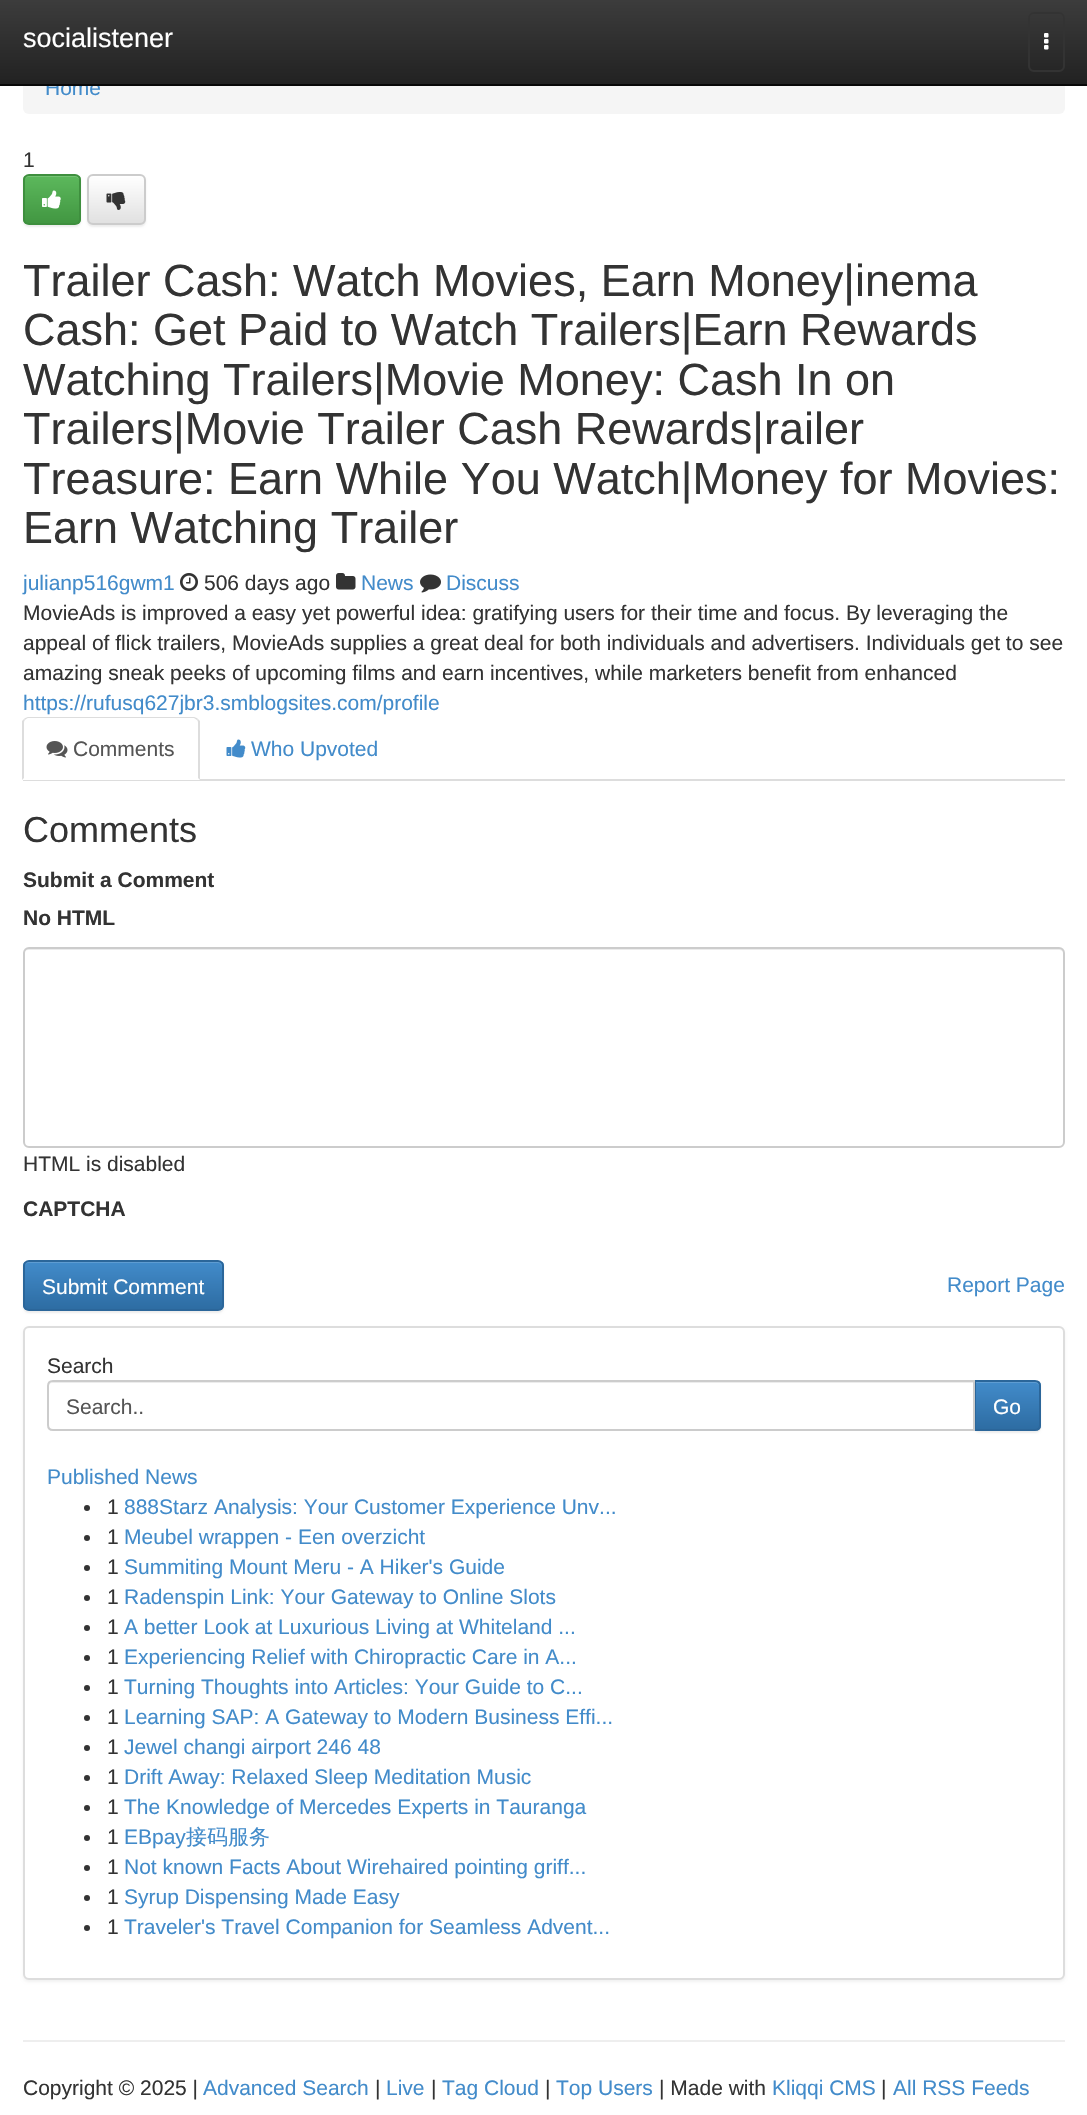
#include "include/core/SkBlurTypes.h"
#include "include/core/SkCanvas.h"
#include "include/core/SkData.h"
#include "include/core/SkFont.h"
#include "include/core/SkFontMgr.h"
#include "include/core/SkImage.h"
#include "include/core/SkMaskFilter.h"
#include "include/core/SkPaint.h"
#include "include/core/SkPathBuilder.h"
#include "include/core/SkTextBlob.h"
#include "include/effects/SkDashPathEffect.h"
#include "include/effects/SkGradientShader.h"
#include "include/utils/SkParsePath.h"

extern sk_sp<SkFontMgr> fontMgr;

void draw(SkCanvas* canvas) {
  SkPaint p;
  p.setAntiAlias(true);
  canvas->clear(SK_ColorWHITE);
  p.setColor(SkColorSetRGB(245, 245, 245));
  canvas->drawRoundRect(SkRect::MakeLTRB(23, 60, 1065, 114), 6, 6, p);
  p.setColor(SkColorSetARGB(18, 0, 0, 0));
  p.setMaskFilter(SkMaskFilter::MakeBlur(kNormal_SkBlurStyle, 1));
  canvas->drawRoundRect(SkRect::MakeLTRB(23, 176, 81, 227), 6, 6, p);
  p.setMaskFilter(nullptr);
  canvas->save();
  canvas->clipPath(SkPathBuilder().moveTo(29, 174).lineTo(75, 174).cubicTo(78.5f, 174, 81, 176.5f, 81, 180).lineTo(81, 219).cubicTo(81, 222.5f, 78.5f, 225, 75, 225).lineTo(29, 225).cubicTo(25.5f, 225, 23, 222.5f, 23, 219).lineTo(23, 180).cubicTo(23, 176.5f, 25.5f, 174, 29, 174).close().detach(), true);
  {
    const SkColor colors[] = {SkColorSetRGB(92, 184, 92), SkColorSetRGB(65, 150, 65)};
    const float stops[] = {0, 1};
    const SkPoint ends[] = {{52, 176}, {52, 224}};
    p.setShader(SkGradientShader::MakeLinear(ends, colors, stops, 2, SkTileMode::kClamp));
    p.setAlpha(255);
  }
  canvas->drawRect(SkRect::MakeLTRB(23, 176, 81, 224), p);
  canvas->restore();
  p.setShader(nullptr);
  p.setColor(SkColorSetRGB(116, 195, 116));
  canvas->drawPath(SkPathBuilder().moveTo(28, 177).lineTo(75, 177).cubicTo(77, 177, 80, 179, 80, 182).cubicTo(80, 174, 73, 176, 67, 176).lineTo(37, 176).cubicTo(31, 176, 24, 174, 24, 182).cubicTo(24, 179, 26, 177, 28, 177).close().detach(), p);
  p.setStyle(SkPaint::kStroke_Style);
  p.setStrokeWidth(2);
  p.setColor(SkColorSetRGB(62, 143, 62));
  canvas->drawRoundRect(SkRect::MakeLTRB(24, 175, 80, 224), 5, 5, p);
  canvas->drawImageRect(SkImages::DeferredFromEncodedData(SkData::MakeFromFileName("images/2.png")), SkRect::MakeLTRB(42, 190, 61, 209), SkSamplingOptions());
  p.setStyle(SkPaint::kFill_Style);
  p.setColor(SkColorSetARGB(18, 0, 0, 0));
  p.setMaskFilter(SkMaskFilter::MakeBlur(kNormal_SkBlurStyle, 1));
  canvas->drawRoundRect(SkRect::MakeLTRB(87, 176, 146, 227), 6, 6, p);
  p.setMaskFilter(nullptr);
  canvas->save();
  canvas->clipPath(SkPathBuilder().moveTo(93, 174).lineTo(140, 174).cubicTo(143.5f, 174, 146, 176.5f, 146, 180).lineTo(146, 219).cubicTo(146, 222.5f, 143.5f, 225, 140, 225).lineTo(93, 225).cubicTo(89.5f, 225, 87, 222.5f, 87, 219).lineTo(87, 180).cubicTo(87, 176.5f, 89.5f, 174, 93, 174).close().detach(), true);
  {
    const SkColor colors[] = {SK_ColorWHITE, SkColorSetRGB(224, 224, 224)};
    const float stops[] = {0, 1};
    const SkPoint ends[] = {{116, 176}, {116, 224}};
    p.setShader(SkGradientShader::MakeLinear(ends, colors, stops, 2, SkTileMode::kClamp));
    p.setAlpha(255);
  }
  canvas->drawRect(SkRect::MakeLTRB(87, 176, 146, 224), p);
  canvas->restore();
  p.setStyle(SkPaint::kStroke_Style);
  p.setShader(nullptr);
  p.setColor(SkColorSetRGB(204, 204, 204));
  canvas->drawRoundRect(SkRect::MakeLTRB(88, 175, 145, 224), 5, 5, p);
  canvas->drawImageRect(SkImages::DeferredFromEncodedData(SkData::MakeFromFileName("images/3.png")), SkRect::MakeLTRB(106, 192, 126, 210), SkSamplingOptions());
  canvas->drawImageRect(SkImages::DeferredFromEncodedData(SkData::MakeFromFileName("images/4.png")), SkRect::MakeLTRB(180, 573, 198, 591), SkSamplingOptions());
  canvas->drawImageRect(SkImages::DeferredFromEncodedData(SkData::MakeFromFileName("images/5.png")), SkRect::MakeLTRB(336, 573, 356, 590), SkSamplingOptions());
  canvas->drawImageRect(SkImages::DeferredFromEncodedData(SkData::MakeFromFileName("images/6.png")), SkRect::MakeLTRB(420, 574, 441, 593), SkSamplingOptions());
  p.setStyle(SkPaint::kFill_Style);
  p.setColor(SkColorSetRGB(221, 221, 221));
  canvas->drawRect(SkRect::MakeLTRB(23, 779, 1065, 781), p);
  p.setColor(SK_ColorWHITE);
  canvas->drawPath(SkPathBuilder().moveTo(29, 717).lineTo(194, 717).cubicTo(197.5f, 717, 200, 719.5f, 200, 723).lineTo(200, 780).lineTo(23, 780).lineTo(23, 723).cubicTo(23, 719.5f, 25.5f, 717, 29, 717).close().detach(), p);
  p.setColor(SkColorSetRGB(221, 221, 221));
  canvas->drawPath(SkPathBuilder().moveTo(28, 717).cubicTo(27, 717, 25, 718, 24, 719).lineTo(25, 720).cubicTo(26, 719, 27, 718, 28, 718).lineTo(194, 718).lineTo(197, 720).lineTo(198, 719).cubicTo(197, 718, 195, 717, 194, 717).close().detach(), p);
  canvas->drawPath(SkPathBuilder().moveTo(200, 721).lineTo(200, 780).lineTo(198, 778).lineTo(198, 723).cubicTo(198, 722, 198, 721, 197, 720).lineTo(198, 719).close().detach(), p);
  canvas->drawPath(SkPathBuilder().moveTo(22, 780).lineTo(22, 721).lineTo(24, 719).lineTo(25, 720).cubicTo(24, 721, 24, 722, 24, 723).lineTo(24, 778).close().detach(), p);
  canvas->drawImageRect(SkImages::DeferredFromEncodedData(SkData::MakeFromFileName("images/7.png")), SkRect::MakeLTRB(46, 741, 68, 758), SkSamplingOptions());
  canvas->drawImageRect(SkImages::DeferredFromEncodedData(SkData::MakeFromFileName("images/8.png")), SkRect::MakeLTRB(226, 739, 246, 758), SkSamplingOptions());
  p.setColor(SkColorSetRGB(236, 236, 236));
  canvas->drawPath(SkPathBuilder().moveTo(28, 950).lineTo(1059, 950).cubicTo(1061, 950, 1064, 952, 1064, 954).cubicTo(1064, 951, 1062, 948, 1059, 948).lineTo(29, 948).cubicTo(26, 948, 24, 951, 24, 954).cubicTo(24, 952, 26, 950, 28, 950).close().detach(), p);
  p.setStyle(SkPaint::kStroke_Style);
  p.setColor(SkColorSetRGB(204, 204, 204));
  canvas->drawRoundRect(SkRect::MakeLTRB(24, 948, 1064, 1147), 5, 5, p);
  p.setStyle(SkPaint::kFill_Style);
  p.setColor(SkColorSetARGB(18, 0, 0, 0));
  p.setMaskFilter(SkMaskFilter::MakeBlur(kNormal_SkBlurStyle, 1));
  canvas->drawRoundRect(SkRect::MakeLTRB(23, 1262, 224, 1313), 6, 6, p);
  p.setMaskFilter(nullptr);
  canvas->save();
  canvas->clipPath(SkPathBuilder().moveTo(29, 1260).lineTo(218, 1260).cubicTo(221.5f, 1260, 224, 1262.5f, 224, 1266).lineTo(224, 1305).cubicTo(224, 1308.5f, 221.5f, 1311, 218, 1311).lineTo(29, 1311).cubicTo(25.5f, 1311, 23, 1308.5f, 23, 1305).lineTo(23, 1266).cubicTo(23, 1262.5f, 25.5f, 1260, 29, 1260).close().detach(), true);
  {
    const SkColor colors[] = {SkColorSetRGB(66, 139, 202), SkColorSetRGB(45, 108, 162)};
    const float stops[] = {0, 1};
    const SkPoint ends[] = {{123, 1262}, {123, 1310}};
    p.setShader(SkGradientShader::MakeLinear(ends, colors, stops, 2, SkTileMode::kClamp));
    p.setAlpha(255);
  }
  canvas->drawRect(SkRect::MakeLTRB(23, 1262, 224, 1310), p);
  canvas->restore();
  p.setShader(nullptr);
  p.setColor(SkColorSetRGB(94, 156, 210));
  canvas->drawPath(SkPathBuilder().moveTo(28, 1263).lineTo(218, 1263).cubicTo(220, 1263, 222, 1265, 222, 1268).lineTo(222, 1267).cubicTo(222, 1264, 220, 1262, 217, 1262).lineTo(29, 1262).cubicTo(26, 1262, 24, 1264, 24, 1267).lineTo(24, 1268).cubicTo(24, 1265, 26, 1263, 28, 1263).close().detach(), p);
  p.setStyle(SkPaint::kStroke_Style);
  p.setColor(SkColorSetRGB(43, 102, 154));
  canvas->drawRoundRect(SkRect::MakeLTRB(24, 1261, 223, 1310), 5, 5, p);
  p.setStyle(SkPaint::kFill_Style);
  p.setColor(SkColorSetARGB(13, 0, 0, 0));
  p.setMaskFilter(SkMaskFilter::MakeBlur(kNormal_SkBlurStyle, 1.5f));
  canvas->drawRoundRect(SkRect::MakeLTRB(23, 1328, 1065, 1982), 6, 6, p);
  p.setMaskFilter(nullptr);
  p.setColor(SK_ColorWHITE);
  canvas->drawRoundRect(SkRect::MakeLTRB(24, 1327, 1064, 1979), 5, 5, p);
  p.setStyle(SkPaint::kStroke_Style);
  p.setColor(SkColorSetRGB(221, 221, 221));
  canvas->drawRoundRect(SkRect::MakeLTRB(24, 1327, 1064, 1979), 5, 5, p);
  p.setStyle(SkPaint::kFill_Style);
  p.setColor(SkColorSetARGB(18, 0, 0, 0));
  p.setMaskFilter(SkMaskFilter::MakeBlur(kNormal_SkBlurStyle, 1));
  canvas->drawRoundRect(SkRect::MakeLTRB(974, 1382, 1041, 1433), 6, 6, p);
  p.setMaskFilter(nullptr);
  canvas->save();
  canvas->clipPath(SkPathBuilder().moveTo(974, 1380).lineTo(1035, 1380).cubicTo(1038.5f, 1380, 1041, 1382.5f, 1041, 1386).lineTo(1041, 1425).cubicTo(1041, 1428.5f, 1038.5f, 1431, 1035, 1431).lineTo(974, 1431).close().detach(), true);
  {
    const SkColor colors[] = {SkColorSetRGB(66, 139, 202), SkColorSetRGB(45, 108, 162)};
    const float stops[] = {0, 1};
    const SkPoint ends[] = {{1007, 1382}, {1007, 1430}};
    p.setShader(SkGradientShader::MakeLinear(ends, colors, stops, 2, SkTileMode::kClamp));
    p.setAlpha(255);
  }
  canvas->drawRect(SkRect::MakeLTRB(976, 1382, 1041, 1430), p);
  canvas->restore();
  p.setShader(nullptr);
  p.setColor(SkColorSetARGB(38, 255, 255, 255));
  canvas->drawPath(SkPathBuilder().moveTo(975, 1383).lineTo(1035, 1383).cubicTo(1037, 1383, 1040, 1385, 1040, 1388).lineTo(1040, 1387).cubicTo(1040, 1384, 1038, 1382, 1035, 1382).lineTo(975, 1382).close().detach(), p);
  p.setStyle(SkPaint::kStroke_Style);
  p.setColor(SkColorSetRGB(43, 102, 154));
  canvas->drawPath(SkPathBuilder().moveTo(975, 1381).lineTo(1035, 1381).cubicTo(1038, 1381, 1040, 1383, 1040, 1386).lineTo(1040, 1425).cubicTo(1040, 1428, 1038, 1430, 1035, 1430).lineTo(975, 1430).close().detach(), p);
  p.setStyle(SkPaint::kFill_Style);
  p.setColor(SK_ColorWHITE);
  canvas->drawPath(SkPathBuilder().moveTo(53, 1380).lineTo(975, 1380).lineTo(975, 1431).lineTo(53, 1431).cubicTo(49.5f, 1431, 47, 1428.5f, 47, 1425).lineTo(47, 1386).cubicTo(47, 1382.5f, 49.5f, 1380, 53, 1380).close().detach(), p);
  p.setColor(SkColorSetRGB(236, 236, 236));
  canvas->drawPath(SkPathBuilder().moveTo(52, 1383).lineTo(974, 1383).lineTo(974, 1382).lineTo(53, 1382).cubicTo(50, 1382, 48, 1385, 48, 1388).cubicTo(48, 1385, 50, 1383, 52, 1383).close().detach(), p);
  p.setStyle(SkPaint::kStroke_Style);
  p.setColor(SkColorSetRGB(204, 204, 204));
  canvas->drawPath(SkPathBuilder().moveTo(53, 1381).lineTo(974, 1381).lineTo(974, 1430).lineTo(53, 1430).cubicTo(50, 1430, 48, 1428, 48, 1425).lineTo(48, 1386).cubicTo(48, 1383, 50, 1381, 53, 1381).close().detach(), p);
  p.setStyle(SkPaint::kFill_Style);
  p.setColor(SkColorSetRGB(51, 51, 51));
  canvas->drawCircle(87, 1508, 3, p);
  canvas->drawCircle(87, 1538, 3, p);
  canvas->drawCircle(87, 1568, 3, p);
  canvas->drawCircle(87, 1598, 3, p);
  canvas->drawCircle(87, 1628, 3, p);
  canvas->drawCircle(87, 1658, 3, p);
  canvas->drawCircle(87, 1688, 3, p);
  canvas->drawCircle(87, 1718, 3, p);
  canvas->drawCircle(87, 1748, 3, p);
  canvas->drawCircle(87, 1778, 3, p);
  canvas->drawCircle(87, 1808, 3, p);
  canvas->drawCircle(87, 1838, 3, p);
  canvas->drawCircle(87, 1868, 3, p);
  canvas->drawCircle(87, 1898, 3, p);
  canvas->drawCircle(87, 1928, 3, p);
  p.setColor(SkColorSetRGB(238, 238, 238));
  canvas->drawRect(SkRect::MakeLTRB(23, 2040, 1065, 2042), p);
  SkFont font1(fontMgr->matchFamilyStyle("Liberation Sans", SkFontStyle::Normal()), 21);
  font1.setSubpixel(true);
  p.setColor(SkColorSetRGB(66, 139, 202));
  canvas->drawString("Home", 45, 95, font1, p);
  {
    const SkColor colors[] = {SkColorSetRGB(60, 60, 60), SkColorSetRGB(34, 34, 34)};
    const float stops[] = {0, 1};
    const SkPoint ends[] = {{544, 0}, {544, 84}};
    p.setShader(SkGradientShader::MakeLinear(ends, colors, stops, 2, SkTileMode::kClamp));
    p.setAlpha(255);
  }
  canvas->drawRect(SkRect::MakeLTRB(0, 0, 1087, 84), p);
  p.setStyle(SkPaint::kStroke_Style);
  p.setShader(nullptr);
  p.setColor(SkColorSetRGB(51, 51, 51));
  canvas->drawRoundRect(SkRect::MakeLTRB(1029, 13, 1064, 71), 5, 5, p);
  canvas->drawImageRect(SkImages::DeferredFromEncodedData(SkData::MakeFromFileName("images/1.png")), SkRect::MakeLTRB(1044, 33, 1049, 50), SkSamplingOptions());
  SkFont font2(fontMgr->matchFamilyStyle("Liberation Sans", SkFontStyle::Normal()), 27);
  font2.setSubpixel(true);
  p.setStyle(SkPaint::kFill_Style);
  p.setColor(SK_ColorWHITE);
  canvas->drawString("socialistener", 23, 47, font2, p);
  p.setColor(SkColorSetRGB(8, 8, 8));
  canvas->drawRect(SkRect::MakeLTRB(0, 84, 1087, 86), p);
  p.setColor(SkColorSetRGB(51, 51, 51));
  canvas->drawString("1", 23, 167, font1, p);
  SkFont font3(fontMgr->matchFamilyStyle("Liberation Sans", SkFontStyle::Normal()), 45);
  font3.setSubpixel(true);
  canvas->drawString("Trailer Cash: Watch Movies, Earn Money|inema", 23, 296, font3, p);
  canvas->drawString("Cash: Get Paid to Watch Trailers|Earn Rewards", 23, 345, font3, p);
  canvas->drawString("Watching Trailers|Movie Money: Cash In on", 23, 395, font3, p);
  canvas->drawString("Trailers|Movie Trailer Cash Rewards|railer", 23, 444, font3, p);
  canvas->drawString("Treasure: Earn While You Watch|Money for Movies:", 23, 494, font3, p);
  canvas->drawString("Earn Watching Trailer", 23, 543, font3, p);
  p.setColor(SkColorSetRGB(66, 139, 202));
  canvas->drawString("julianp516gwm1", 23, 590, font1, p);
  p.setColor(SkColorSetRGB(51, 51, 51));
  canvas->drawString("506 days ago", 204, 590, font1, p);
  p.setColor(SkColorSetRGB(66, 139, 202));
  canvas->drawString("News", 361, 590, font1, p);
  canvas->drawString("Discuss", 446, 590, font1, p);
  p.setColor(SkColorSetRGB(51, 51, 51));
  canvas->drawString("MovieAds is improved a easy yet powerful idea: gratifying users for their time and focus. By leveraging the", 23, 620, font1, p);
  canvas->drawString("appeal of flick trailers, MovieAds supplies a great deal for both individuals and advertisers. Individuals get to see", 23, 650, font1, p);
  canvas->drawString("amazing sneak peeks of upcoming films and earn incentives, while marketers benefit from enhanced", 23, 680, font1, p);
  p.setColor(SkColorSetRGB(66, 139, 202));
  canvas->drawString("https://rufusq627jbr3.smblogsites.com/profile", 23, 710, font1, p);
  p.setColor(SkColorSetRGB(85, 85, 85));
  canvas->drawString("Comments", 73, 756, font1, p);
  p.setColor(SkColorSetRGB(66, 139, 202));
  canvas->drawString("Who Upvoted", 251, 756, font1, p);
  SkFont font4(fontMgr->matchFamilyStyle("Liberation Sans", SkFontStyle::Normal()), 36);
  font4.setSubpixel(true);
  p.setColor(SkColorSetRGB(51, 51, 51));
  canvas->drawString("Comments", 23, 842, font4, p);
  SkFont font5(fontMgr->matchFamilyStyle("Liberation Sans", SkFontStyle::Bold()), 21);
  font5.setSubpixel(true);
  canvas->drawString("Submit a Comment", 23, 887, font5, p);
  canvas->drawString("No HTML", 23, 925, font5, p);
  canvas->drawString("HTML is disabled", 23, 1171, font1, p);
  canvas->drawString("CAPTCHA", 23, 1216, font5, p);
  p.setColor(SK_ColorWHITE);
  canvas->drawString("Submit Comment", 42, 1294, font1, p);
  p.setColor(SkColorSetRGB(66, 139, 202));
  canvas->drawString("Report Page", 947, 1292, font1, p);
  p.setColor(SkColorSetRGB(51, 51, 51));
  canvas->drawString("Search", 47, 1373, font1, p);
  p.setColor(SkColorSetRGB(85, 85, 85));
  canvas->drawString("Search..", 66, 1414, font1, p);
  p.setColor(SK_ColorWHITE);
  canvas->drawString("Go", 993, 1414, font1, p);
  p.setColor(SkColorSetRGB(66, 139, 202));
  canvas->drawString("Published News", 47, 1484, font1, p);
  p.setColor(SkColorSetRGB(51, 51, 51));
  canvas->drawString("1", 107, 1514, font1, p);
  p.setColor(SkColorSetRGB(66, 139, 202));
  canvas->drawString("888Starz Analysis: Your Customer Experience Unv...", 124, 1514, font1, p);
  p.setColor(SkColorSetRGB(51, 51, 51));
  canvas->drawString("1", 107, 1544, font1, p);
  p.setColor(SkColorSetRGB(66, 139, 202));
  canvas->drawString("Meubel wrappen - Een overzicht", 124, 1544, font1, p);
  p.setColor(SkColorSetRGB(51, 51, 51));
  canvas->drawString("1", 107, 1574, font1, p);
  p.setColor(SkColorSetRGB(66, 139, 202));
  canvas->drawString("Summiting Mount Meru - A Hiker's Guide", 124, 1574, font1, p);
  p.setColor(SkColorSetRGB(51, 51, 51));
  canvas->drawString("1", 107, 1604, font1, p);
  p.setColor(SkColorSetRGB(66, 139, 202));
  canvas->drawString("Radenspin Link: Your Gateway to Online Slots", 124, 1604, font1, p);
  p.setColor(SkColorSetRGB(51, 51, 51));
  canvas->drawString("1", 107, 1634, font1, p);
  p.setColor(SkColorSetRGB(66, 139, 202));
  canvas->drawString("A better Look at Luxurious Living at Whiteland ...", 124, 1634, font1, p);
  p.setColor(SkColorSetRGB(51, 51, 51));
  canvas->drawString("1", 107, 1664, font1, p);
  p.setColor(SkColorSetRGB(66, 139, 202));
  canvas->drawString("Experiencing Relief with Chiropractic Care in A...", 124, 1664, font1, p);
  p.setColor(SkColorSetRGB(51, 51, 51));
  canvas->drawString("1", 107, 1694, font1, p);
  p.setColor(SkColorSetRGB(66, 139, 202));
  canvas->drawString("Turning Thoughts into Articles: Your Guide to C...", 124, 1694, font1, p);
  p.setColor(SkColorSetRGB(51, 51, 51));
  canvas->drawString("1", 107, 1724, font1, p);
  p.setColor(SkColorSetRGB(66, 139, 202));
  canvas->drawString("Learning SAP: A Gateway to Modern Business Effi...", 124, 1724, font1, p);
  p.setColor(SkColorSetRGB(51, 51, 51));
  canvas->drawString("1", 107, 1754, font1, p);
  p.setColor(SkColorSetRGB(66, 139, 202));
  canvas->drawString("Jewel changi airport 246 48", 124, 1754, font1, p);
  p.setColor(SkColorSetRGB(51, 51, 51));
  canvas->drawString("1", 107, 1784, font1, p);
  p.setColor(SkColorSetRGB(66, 139, 202));
  canvas->drawString("Drift Away: Relaxed Sleep Meditation Music", 124, 1784, font1, p);
  p.setColor(SkColorSetRGB(51, 51, 51));
  canvas->drawString("1", 107, 1814, font1, p);
  p.setColor(SkColorSetRGB(66, 139, 202));
  canvas->drawString("The Knowledge of Mercedes Experts in Tauranga", 124, 1814, font1, p);
  p.setColor(SkColorSetRGB(51, 51, 51));
  canvas->drawString("1", 107, 1844, font1, p);
  p.setColor(SkColorSetRGB(66, 139, 202));
  canvas->drawString("EBpay", 124, 1844, font1, p);
  SkFont font6(fontMgr->matchFamilyStyle("WenQuanYi Zen Hei", SkFontStyle(500, SkFontStyle::kNormal_Width, SkFontStyle::kUpright_Slant)), 21);
  font6.setSubpixel(true);
  canvas->drawString("接码服务", 186, 1844, font6, p);
  p.setColor(SkColorSetRGB(51, 51, 51));
  canvas->drawString("1", 107, 1874, font1, p);
  p.setColor(SkColorSetRGB(66, 139, 202));
  canvas->drawString("Not known Facts About Wirehaired pointing griff...", 124, 1874, font1, p);
  p.setColor(SkColorSetRGB(51, 51, 51));
  canvas->drawString("1", 107, 1904, font1, p);
  p.setColor(SkColorSetRGB(66, 139, 202));
  canvas->drawString("Syrup Dispensing Made Easy", 124, 1904, font1, p);
  p.setColor(SkColorSetRGB(51, 51, 51));
  canvas->drawString("1", 107, 1934, font1, p);
  p.setColor(SkColorSetRGB(66, 139, 202));
  canvas->drawString("Traveler's Travel Companion for Seamless Advent...", 124, 1934, font1, p);
  p.setColor(SkColorSetRGB(51, 51, 51));
  canvas->drawString("Copyright © 2025 |", 23, 2095, font1, p);
  p.setColor(SkColorSetRGB(66, 139, 202));
  canvas->drawString("Advanced Search", 203, 2095, font1, p);
  p.setColor(SkColorSetRGB(51, 51, 51));
  canvas->drawString("|", 375, 2095, font1, p);
  p.setColor(SkColorSetRGB(66, 139, 202));
  canvas->drawString("Live", 386, 2095, font1, p);
  p.setColor(SkColorSetRGB(51, 51, 51));
  canvas->drawString("|", 431, 2095, font1, p);
  p.setColor(SkColorSetRGB(66, 139, 202));
  canvas->drawString("Tag Cloud", 442, 2095, font1, p);
  p.setColor(SkColorSetRGB(51, 51, 51));
  canvas->drawString("|", 545, 2095, font1, p);
  p.setColor(SkColorSetRGB(66, 139, 202));
  canvas->drawString("Top Users", 556, 2095, font1, p);
  p.setColor(SkColorSetRGB(51, 51, 51));
  canvas->drawString("| Made with", 659, 2095, font1, p);
  p.setColor(SkColorSetRGB(66, 139, 202));
  canvas->drawString("Kliqqi CMS", 772, 2095, font1, p);
  p.setColor(SkColorSetRGB(51, 51, 51));
  canvas->drawString("|", 881, 2095, font1, p);
  p.setColor(SkColorSetRGB(66, 139, 202));
  canvas->drawString("All RSS Feeds", 893, 2095, font1, p);
}
